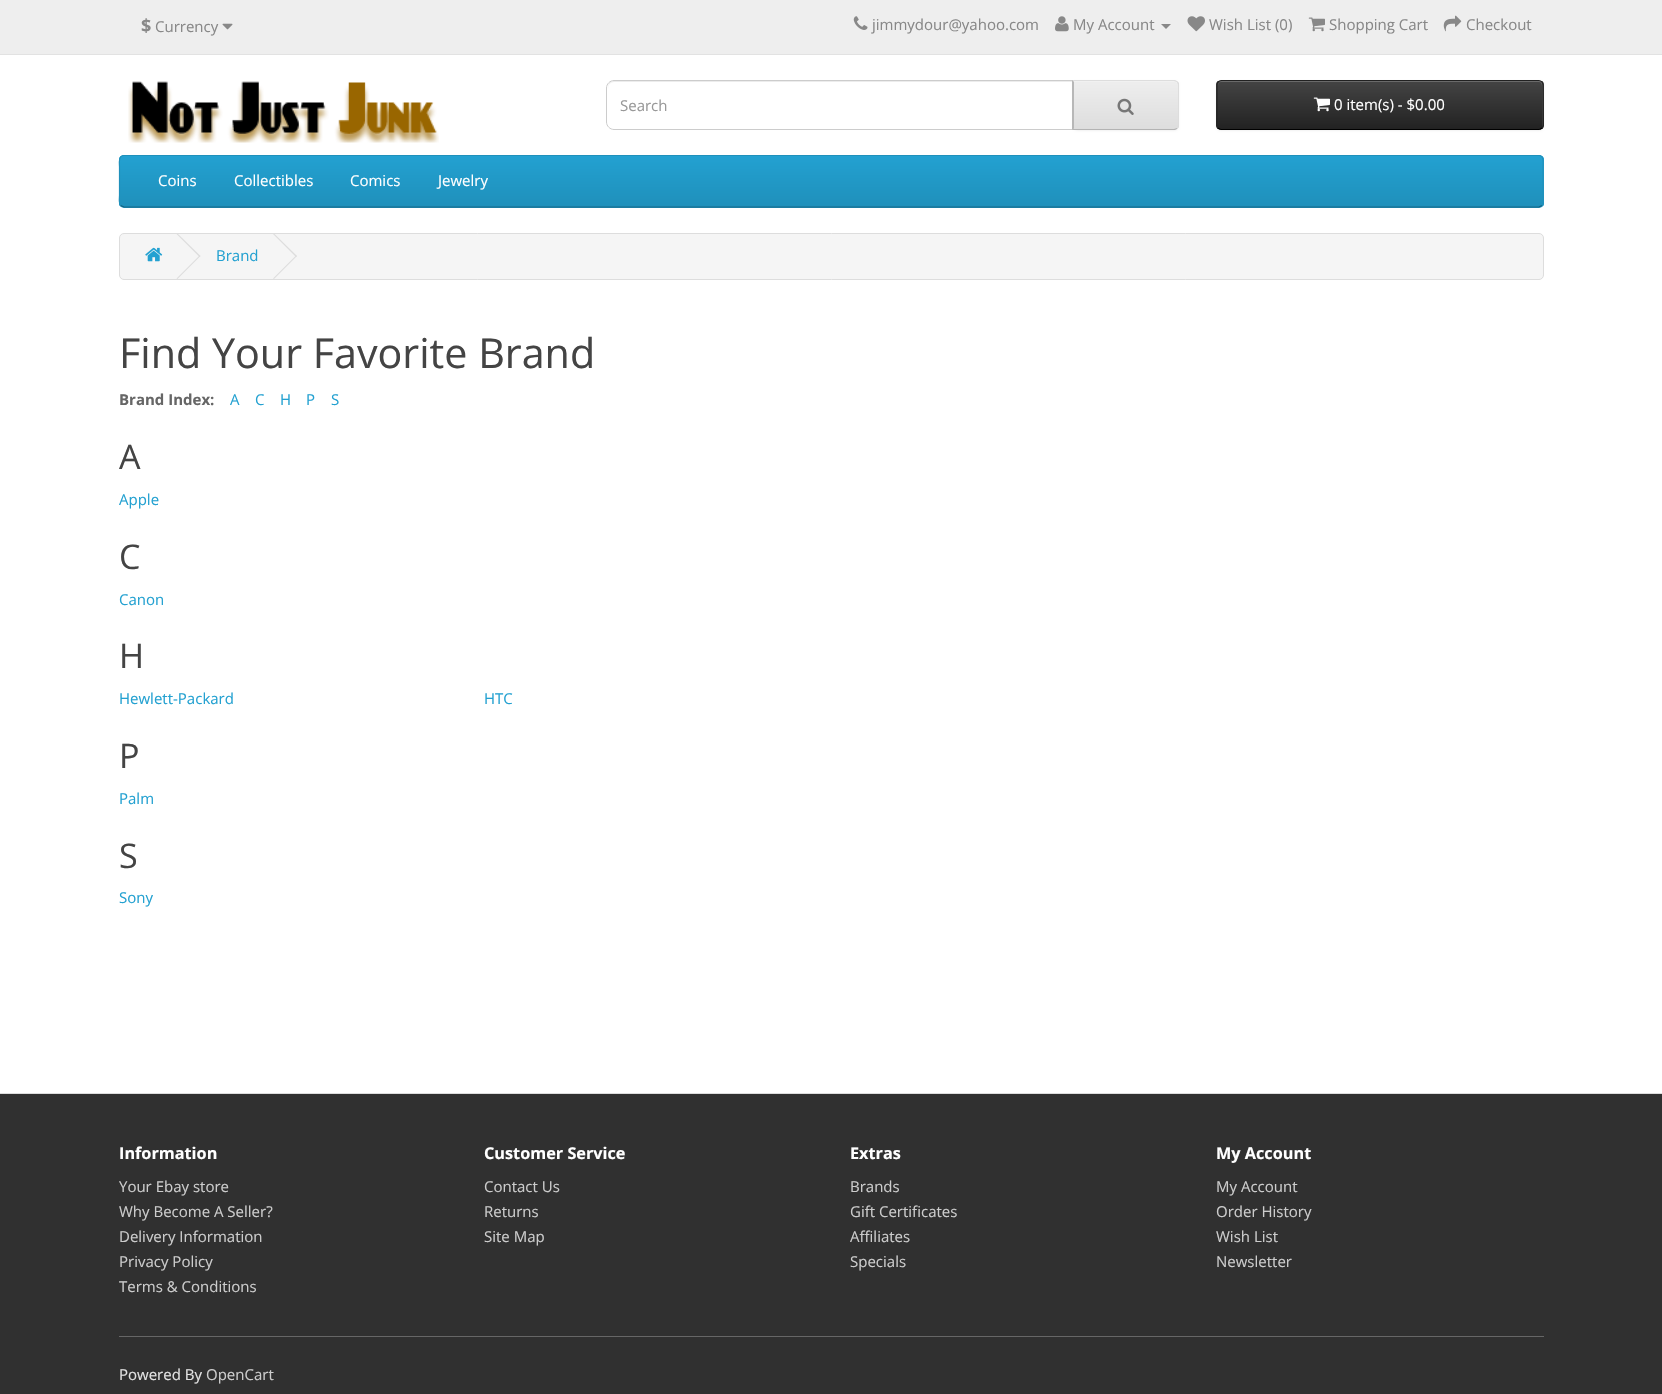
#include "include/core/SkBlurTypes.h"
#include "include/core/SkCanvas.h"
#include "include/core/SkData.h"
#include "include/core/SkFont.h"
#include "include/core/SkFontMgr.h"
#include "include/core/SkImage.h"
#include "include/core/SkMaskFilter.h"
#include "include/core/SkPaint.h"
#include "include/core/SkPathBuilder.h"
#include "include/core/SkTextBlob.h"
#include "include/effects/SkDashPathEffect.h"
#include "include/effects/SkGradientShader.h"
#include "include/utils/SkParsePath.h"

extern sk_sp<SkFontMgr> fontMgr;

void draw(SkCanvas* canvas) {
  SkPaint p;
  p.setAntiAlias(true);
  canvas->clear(SK_ColorWHITE);
  p.setColor(SkColorSetRGB(238, 238, 238));
  canvas->drawRect(SkRect::MakeLTRB(0, 0, 1662, 54), p);
  p.setColor(SkColorSetRGB(226, 226, 226));
  canvas->drawRect(SkRect::MakeLTRB(0, 54, 1662, 55), p);
  canvas->drawImageRect(SkImages::DeferredFromEncodedData(SkData::MakeFromFileName("images/1.png")), SkRect::MakeLTRB(222, 23, 233, 30), SkSamplingOptions());
  canvas->drawImageRect(SkImages::DeferredFromEncodedData(SkData::MakeFromFileName("images/2.png")), SkRect::MakeLTRB(853, 16, 868, 30), SkSamplingOptions());
  canvas->drawImageRect(SkImages::DeferredFromEncodedData(SkData::MakeFromFileName("images/3.png")), SkRect::MakeLTRB(1055, 16, 1069, 32), SkSamplingOptions());
  p.setColor(SkColorSetRGB(136, 136, 136));
  canvas->drawPath(SkPathBuilder().moveTo(1161, 24).lineTo(1171, 24).lineTo(1166, 29).close().detach(), p);
  canvas->drawImageRect(SkImages::DeferredFromEncodedData(SkData::MakeFromFileName("images/4.png")), SkRect::MakeLTRB(1187, 16, 1205, 32), SkSamplingOptions());
  canvas->drawImageRect(SkImages::DeferredFromEncodedData(SkData::MakeFromFileName("images/5.png")), SkRect::MakeLTRB(1308, 17, 1325, 32), SkSamplingOptions());
  canvas->drawImageRect(SkImages::DeferredFromEncodedData(SkData::MakeFromFileName("images/6.png")), SkRect::MakeLTRB(1443, 15, 1462, 32), SkSamplingOptions());
  canvas->drawImageRect(SkImages::DeferredFromEncodedData(SkData::MakeFromFileName("images/7.png")), SkRect::MakeLTRB(128, 81, 439, 143), SkSamplingOptions());
  p.setColor(SkColorSetRGB(236, 236, 236));
  canvas->drawPath(SkPathBuilder().moveTo(614, 82).lineTo(1072, 82).lineTo(1072, 129).lineTo(1073, 129).lineTo(1073, 81).lineTo(614, 81).cubicTo(609, 81, 608, 85, 608, 89).cubicTo(608, 85, 610, 82, 614, 82).close().detach(), p);
  p.setStyle(SkPaint::kStroke_Style);
  p.setStrokeWidth(1);
  p.setColor(SkColorSetRGB(204, 204, 204));
  canvas->drawPath(SkPathBuilder().moveTo(614, 80.5f).lineTo(1073.5f, 80.5f).lineTo(1073.5f, 129.5f).lineTo(614, 129.5f).cubicTo(610, 129.5f, 606.5f, 126, 606.5f, 122).lineTo(606.5f, 88).cubicTo(606.5f, 84, 610, 80.5f, 614, 80.5f).close().detach(), p);
  p.setStyle(SkPaint::kFill_Style);
  p.setColor(SkColorSetARGB(13, 0, 0, 0));
  p.setMaskFilter(SkMaskFilter::MakeBlur(kNormal_SkBlurStyle, 1));
  canvas->drawRoundRect(SkRect::MakeLTRB(1073, 81, 1179, 131), 5, 5, p);
  p.setMaskFilter(nullptr);
  canvas->save();
  canvas->clipPath(SkPathBuilder().moveTo(1073, 80).lineTo(1174, 80).cubicTo(1177, 80, 1179, 82, 1179, 85).lineTo(1179, 125).cubicTo(1179, 128, 1177, 130, 1174, 130).lineTo(1073, 130).close().detach(), true);
  {
    const SkColor colors[] = {SkColorSetRGB(238, 238, 238), SkColorSetRGB(221, 221, 221)};
    const float stops[] = {0, 1};
    const SkPoint ends[] = {{1126, 81}, {1126, 129}};
    p.setShader(SkGradientShader::MakeLinear(ends, colors, stops, 2, SkTileMode::kClamp));
    p.setAlpha(255);
  }
  canvas->drawRect(SkRect::MakeLTRB(1073, 81, 1179, 129), p);
  canvas->restore();
  p.setShader(nullptr);
  p.setColor(SkColorSetRGB(241, 241, 241));
  canvas->drawPath(SkPathBuilder().moveTo(1074, 82).lineTo(1174, 82).cubicTo(1176, 82, 1178, 84, 1178, 86).lineTo(1178, 85).cubicTo(1178, 83, 1176, 81, 1174, 81).lineTo(1074, 81).close().detach(), p);
  p.setColor(SkColorSetRGB(221, 221, 221));
  canvas->drawPath(SkPathBuilder().moveTo(1074, 81).lineTo(1174, 81).lineTo(1177, 82).lineTo(1177, 81).lineTo(1175, 80).lineTo(1072, 80).lineTo(1074, 82).close().detach(), p);
  canvas->drawPath(SkPathBuilder().moveTo(1179, 127).lineTo(1177, 129).lineTo(1177, 128).cubicTo(1177, 127, 1178, 126, 1178, 125).lineTo(1178, 85).cubicTo(1178, 84, 1177, 83, 1177, 82).lineTo(1177, 81).lineTo(1179, 83).close().detach(), p);
  p.setColor(SkColorSetRGB(179, 179, 179));
  canvas->drawPath(SkPathBuilder().moveTo(1072, 130).lineTo(1175, 130).lineTo(1177, 129).lineTo(1177, 128).lineTo(1174, 129).lineTo(1074, 129).lineTo(1074, 128).close().detach(), p);
  p.setColor(SkColorSetRGB(183, 183, 183));
  canvas->drawPath(SkPathBuilder().moveTo(1072, 130).lineTo(1074, 128).lineTo(1074, 82).lineTo(1072, 80).close().detach(), p);
  canvas->drawImageRect(SkImages::DeferredFromEncodedData(SkData::MakeFromFileName("images/8.png")), SkRect::MakeLTRB(1117, 98, 1134, 115), SkSamplingOptions());
  p.setColor(SkColorSetARGB(13, 0, 0, 0));
  p.setMaskFilter(SkMaskFilter::MakeBlur(kNormal_SkBlurStyle, 1));
  canvas->drawRoundRect(SkRect::MakeLTRB(1216, 81, 1544, 131), 5, 5, p);
  p.setMaskFilter(nullptr);
  canvas->save();
  canvas->clipPath(SkPathBuilder().moveTo(1221, 80).lineTo(1539, 80).cubicTo(1542, 80, 1544, 82, 1544, 85).lineTo(1544, 125).cubicTo(1544, 128, 1542, 130, 1539, 130).lineTo(1221, 130).cubicTo(1218, 130, 1216, 128, 1216, 125).lineTo(1216, 85).cubicTo(1216, 82, 1218, 80, 1221, 80).close().detach(), true);
  {
    const SkColor colors[] = {SkColorSetRGB(68, 68, 68), SkColorSetRGB(34, 34, 34)};
    const float stops[] = {0, 1};
    const SkPoint ends[] = {{1380, 81}, {1380, 129}};
    p.setShader(SkGradientShader::MakeLinear(ends, colors, stops, 2, SkTileMode::kClamp));
    p.setAlpha(255);
  }
  canvas->drawRect(SkRect::MakeLTRB(1216, 81, 1544, 129), p);
  canvas->restore();
  p.setShader(nullptr);
  p.setColor(SkColorSetARGB(51, 255, 255, 255));
  canvas->drawPath(SkPathBuilder().moveTo(1221, 82).lineTo(1539, 82).cubicTo(1541, 82, 1542, 84, 1542, 86).lineTo(1542, 128).cubicTo(1542, 127, 1543, 126, 1543, 125).lineTo(1543, 85).cubicTo(1543, 83, 1541, 81, 1539, 81).lineTo(1222, 81).cubicTo(1220, 81, 1218, 83, 1218, 85).lineTo(1218, 86).cubicTo(1218, 84, 1219, 82, 1221, 82).close().detach(), p);
  p.setStyle(SkPaint::kStroke_Style);
  p.setStrokeWidth(1.2f);
  p.setColor(SK_ColorBLACK);
  canvas->drawPath(SkPathBuilder().moveTo(1542, 128).cubicTo(1541, 129, 1540, 129.5f, 1539, 129.5f).lineTo(1221, 129.5f).cubicTo(1220, 129.5f, 1219, 129, 1218, 128).detach(), p);
  p.setColor(SkColorSetRGB(34, 34, 34));
  canvas->drawPath(SkPathBuilder().moveTo(1218, 128).cubicTo(1217.5f, 127.5f, 1217, 126, 1217, 125).lineTo(1217, 85).cubicTo(1217, 84, 1217.5f, 82.5f, 1218, 82).cubicTo(1219, 81, 1220, 80.5f, 1221, 80.5f).lineTo(1539, 80.5f).cubicTo(1540, 80.5f, 1541, 81, 1542, 82).cubicTo(1542.5f, 82.5f, 1543, 84, 1543, 85).lineTo(1543, 125).cubicTo(1543, 126, 1542.5f, 127.5f, 1542, 128).detach(), p);
  canvas->drawImageRect(SkImages::DeferredFromEncodedData(SkData::MakeFromFileName("images/9.png")), SkRect::MakeLTRB(1313, 97, 1330, 112), SkSamplingOptions());
  p.setStyle(SkPaint::kFill_Style);
  p.setColor(SkColorSetRGB(34, 154, 200));
  canvas->drawRoundRect(SkRect::MakeLTRB(119, 155, 1544, 208), 5, 5, p);
  canvas->save();
  canvas->clipPath(SkPathBuilder().moveTo(124, 155).lineTo(1539, 155).cubicTo(1542, 155, 1544, 157, 1544, 160).lineTo(1544, 203).cubicTo(1544, 206, 1542, 208, 1539, 208).lineTo(124, 208).cubicTo(121, 208, 119, 206, 119, 203).lineTo(119, 160).cubicTo(119, 157, 121, 155, 124, 155).close().detach(), true);
  {
    const SkColor colors[] = {SkColorSetRGB(35, 161, 209), SkColorSetRGB(31, 144, 187)};
    const float stops[] = {0, 1};
    const SkPoint ends[] = {{831, 156}, {831, 206}};
    p.setShader(SkGradientShader::MakeLinear(ends, colors, stops, 2, SkTileMode::kClamp));
    p.setAlpha(255);
  }
  canvas->drawRect(SkRect::MakeLTRB(119, 156, 1544, 206), p);
  canvas->restore();
  p.setStyle(SkPaint::kStroke_Style);
  p.setShader(nullptr);
  p.setColor(SkColorSetRGB(20, 94, 122));
  canvas->drawPath(SkPathBuilder().moveTo(1542, 205.5f).lineTo(1539, 207).lineTo(124, 207).lineTo(120.5f, 205.5f).detach(), p);
  p.setColor(SkColorSetRGB(31, 144, 187));
  canvas->drawPath(SkPathBuilder().moveTo(120.5f, 205.5f).cubicTo(118.5f, 203, 119.5f, 197.5f, 119.5f, 195.5f).lineTo(119.5f, 167).cubicTo(119.5f, 164, 118, 155.5f, 124, 155.5f).lineTo(1539, 155.5f).cubicTo(1544.5f, 155.5f, 1543, 164, 1543, 167).lineTo(1543, 195.5f).cubicTo(1543, 197.5f, 1544, 203, 1542, 205.5f).detach(), p);
  p.setStyle(SkPaint::kFill_Style);
  p.setColor(SkColorSetRGB(245, 245, 245));
  canvas->drawRoundRect(SkRect::MakeLTRB(119.5f, 233.5f, 1543.5f, 279.5f), 4.5f, 4.5f, p);
  p.setStyle(SkPaint::kStroke_Style);
  p.setStrokeWidth(1);
  p.setColor(SkColorSetRGB(221, 221, 221));
  canvas->drawRoundRect(SkRect::MakeLTRB(119.5f, 233.5f, 1543.5f, 279.5f), 4.5f, 4.5f, p);
  canvas->drawImageRect(SkImages::DeferredFromEncodedData(SkData::MakeFromFileName("images/10.png")), SkRect::MakeLTRB(145, 247, 163, 262), SkSamplingOptions());
  p.setStyle(SkPaint::kFill_Style);
  canvas->drawPath(SkPathBuilder().moveTo(176.5f, 234).lineTo(177.5f, 233.5f).lineTo(200.5f, 256).lineTo(199.5f, 257).close().detach(), p);
  canvas->drawPath(SkPathBuilder().moveTo(176.5f, 278.5f).lineTo(199.5f, 255.5f).lineTo(200.5f, 256).lineTo(177.5f, 279).close().detach(), p);
  canvas->drawPath(SkPathBuilder().moveTo(273, 234).lineTo(274, 233.5f).lineTo(297, 256).lineTo(296, 257).close().detach(), p);
  canvas->drawPath(SkPathBuilder().moveTo(273, 278.5f).lineTo(296, 255.5f).lineTo(297, 256).lineTo(274, 279).close().detach(), p);
  p.setColor(SkColorSetRGB(48, 48, 48));
  canvas->drawRect(SkRect::MakeLTRB(0, 1094, 1662, 1394), p);
  p.setColor(SkColorSetRGB(221, 221, 221));
  canvas->drawRect(SkRect::MakeLTRB(0, 1093, 1662, 1094), p);
  p.setColor(SkColorSetRGB(102, 102, 102));
  canvas->drawRect(SkRect::MakeLTRB(119, 1336, 1544, 1337), p);
  SkFont font1(fontMgr->matchFamilyStyle("Open Sans", SkFontStyle::Bold()), 18);
  font1.setSubpixel(true);
  p.setColor(SkColorSetRGB(136, 136, 136));
  canvas->drawString("$", 141, 32, font1, p);
  SkFont font2(fontMgr->matchFamilyStyle("Open Sans", SkFontStyle::Normal()), 15);
  font2.setSubpixel(true);
  canvas->drawString("Currency", 155, 32, font2, p);
  canvas->drawString("jimmydour@yahoo.com", 872, 30, font2, p);
  canvas->drawString("My Account", 1073, 30, font2, p);
  canvas->drawString("Wish List (0)", 1209, 30, font2, p);
  canvas->drawString("Shopping Cart", 1329, 30, font2, p);
  canvas->drawString("Checkout", 1466, 30, font2, p);
  p.setColor(SkColorSetRGB(153, 153, 153));
  canvas->drawString("Search", 620, 111, font2, p);
  p.setColor(SK_ColorWHITE);
  canvas->drawString("0 item(s) - $0.00", 1334, 110, font2, p);
  canvas->drawString("Coins", 158, 186, font2, p);
  canvas->drawString("Collectibles", 234, 186, font2, p);
  canvas->drawString("Comics", 350, 186, font2, p);
  canvas->drawString("Jewelry", 438, 186, font2, p);
  p.setColor(SkColorSetRGB(35, 161, 209));
  canvas->drawString("Brand", 216, 261, font2, p);
  SkFont font3(fontMgr->matchFamilyStyle("Open Sans", SkFontStyle::Normal()), 41.25f);
  font3.setSubpixel(true);
  p.setColor(SkColorSetRGB(68, 68, 68));
  canvas->drawString("Find Your Favorite Brand", 119, 368, font3, p);
  SkFont font4(fontMgr->matchFamilyStyle("Open Sans", SkFontStyle::Bold()), 15);
  font4.setSubpixel(true);
  p.setColor(SkColorSetRGB(102, 102, 102));
  canvas->drawString("Brand Index:", 119, 405, font4, p);
  p.setColor(SkColorSetRGB(35, 161, 209));
  canvas->drawString("A", 230, 405, font2, p);
  canvas->drawString("C", 255, 405, font2, p);
  canvas->drawString("H", 280, 405, font2, p);
  canvas->drawString("P", 306, 405, font2, p);
  canvas->drawString("S", 331, 405, font2, p);
  SkFont font5(fontMgr->matchFamilyStyle("Open Sans", SkFontStyle::Normal()), 34);
  font5.setSubpixel(true);
  p.setColor(SkColorSetRGB(68, 68, 68));
  canvas->drawString("A", 119, 469, font5, p);
  p.setColor(SkColorSetRGB(35, 161, 209));
  canvas->drawString("Apple", 119, 505, font2, p);
  p.setColor(SkColorSetRGB(68, 68, 68));
  canvas->drawString("C", 119, 569, font5, p);
  p.setColor(SkColorSetRGB(35, 161, 209));
  canvas->drawString("Canon", 119, 605, font2, p);
  p.setColor(SkColorSetRGB(68, 68, 68));
  canvas->drawString("H", 119, 668, font5, p);
  p.setColor(SkColorSetRGB(35, 161, 209));
  canvas->drawString("Hewlett-Packard", 119, 704, font2, p);
  canvas->drawString("HTC", 484, 704, font2, p);
  p.setColor(SkColorSetRGB(68, 68, 68));
  canvas->drawString("P", 119, 768, font5, p);
  p.setColor(SkColorSetRGB(35, 161, 209));
  canvas->drawString("Palm", 119, 804, font2, p);
  p.setColor(SkColorSetRGB(68, 68, 68));
  canvas->drawString("S", 119, 868, font5, p);
  p.setColor(SkColorSetRGB(35, 161, 209));
  canvas->drawString("Sony", 119, 903, font2, p);
  SkFont font6(fontMgr->matchFamilyStyle("Open Sans", SkFontStyle::Bold()), 16.25f);
  font6.setSubpixel(true);
  p.setColor(SK_ColorWHITE);
  canvas->drawString("Information", 119, 1159, font6, p);
  p.setColor(SkColorSetRGB(204, 204, 204));
  canvas->drawString("Your Ebay store", 119, 1192, font2, p);
  canvas->drawString("Why Become A Seller?", 119, 1217, font2, p);
  canvas->drawString("Delivery Information", 119, 1242, font2, p);
  canvas->drawString("Privacy Policy", 119, 1267, font2, p);
  canvas->drawString("Terms & Conditions", 119, 1292, font2, p);
  p.setColor(SK_ColorWHITE);
  canvas->drawString("Customer Service", 484, 1159, font6, p);
  p.setColor(SkColorSetRGB(204, 204, 204));
  canvas->drawString("Contact Us", 484, 1192, font2, p);
  canvas->drawString("Returns", 484, 1217, font2, p);
  canvas->drawString("Site Map", 484, 1242, font2, p);
  p.setColor(SK_ColorWHITE);
  canvas->drawString("Extras", 850, 1159, font6, p);
  p.setColor(SkColorSetRGB(204, 204, 204));
  canvas->drawString("Brands", 850, 1192, font2, p);
  canvas->drawString("Gift Certificates", 850, 1217, font2, p);
  canvas->drawString("Affiliates", 850, 1242, font2, p);
  canvas->drawString("Specials", 850, 1267, font2, p);
  p.setColor(SK_ColorWHITE);
  canvas->drawString("My Account", 1216, 1159, font6, p);
  p.setColor(SkColorSetRGB(204, 204, 204));
  canvas->drawString("My Account", 1216, 1192, font2, p);
  canvas->drawString("Order History", 1216, 1217, font2, p);
  canvas->drawString("Wish List", 1216, 1242, font2, p);
  canvas->drawString("Newsletter", 1216, 1267, font2, p);
  p.setColor(SkColorSetRGB(226, 226, 226));
  canvas->drawString("Powered By", 119, 1380, font2, p);
  p.setColor(SkColorSetRGB(204, 204, 204));
  canvas->drawString("OpenCart", 206, 1380, font2, p);
}
